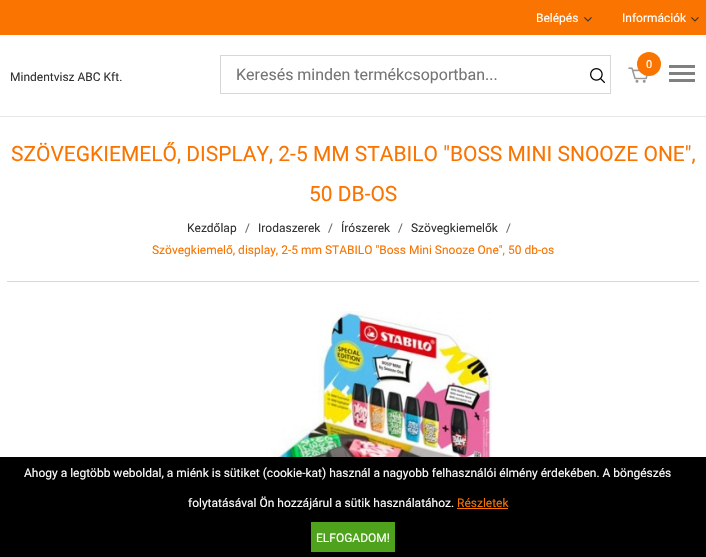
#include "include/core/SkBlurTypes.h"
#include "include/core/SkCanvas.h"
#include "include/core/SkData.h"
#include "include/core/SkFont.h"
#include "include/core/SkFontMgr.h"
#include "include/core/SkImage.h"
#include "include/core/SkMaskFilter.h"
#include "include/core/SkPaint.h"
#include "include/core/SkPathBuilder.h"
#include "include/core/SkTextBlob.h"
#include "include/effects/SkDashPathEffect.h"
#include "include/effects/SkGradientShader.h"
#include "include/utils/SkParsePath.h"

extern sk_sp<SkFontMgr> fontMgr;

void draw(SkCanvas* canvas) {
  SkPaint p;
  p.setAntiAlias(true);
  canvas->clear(SK_ColorWHITE);
  p.setColor(SkColorSetRGB(249, 116, 0));
  canvas->drawRect(SkRect::MakeLTRB(0, 0, 706, 35), p);
  canvas->drawImageRect(SkImages::DeferredFromEncodedData(SkData::MakeFromFileName("images/1.png")), SkRect::MakeLTRB(584, 17, 592, 22), SkSamplingOptions());
  canvas->drawImageRect(SkImages::DeferredFromEncodedData(SkData::MakeFromFileName("images/1.png")), SkRect::MakeLTRB(691, 17, 699, 22), SkSamplingOptions());
  p.setColor(SkColorSetRGB(231, 231, 231));
  canvas->drawRect(SkRect::MakeLTRB(0, 116, 706, 117), p);
  p.setStyle(SkPaint::kStroke_Style);
  p.setStrokeWidth(1);
  p.setColor(SkColorSetRGB(215, 215, 215));
  canvas->drawRect(SkRect::MakeLTRB(220.5f, 55.5f, 610.5f, 93.5f), p);
  canvas->drawImageRect(SkImages::DeferredFromEncodedData(SkData::MakeFromFileName("images/2.png")), SkRect::MakeLTRB(590, 68, 606, 83), SkSamplingOptions());
  canvas->drawImageRect(SkImages::DeferredFromEncodedData(SkData::MakeFromFileName("images/3.png")), SkRect::MakeLTRB(628, 67, 648, 83), SkSamplingOptions());
  p.setStyle(SkPaint::kFill_Style);
  p.setColor(SkColorSetRGB(249, 116, 0));
  canvas->drawCircle(649, 64, 12, p);
  p.setColor(SkColorSetRGB(128, 128, 128));
  canvas->drawRect(SkRect::MakeLTRB(669, 65, 695, 68), p);
  canvas->drawRect(SkRect::MakeLTRB(669, 72, 695, 75), p);
  canvas->drawRect(SkRect::MakeLTRB(669, 79, 695, 82), p);
  p.setColor(SkColorSetRGB(215, 215, 215));
  canvas->drawRect(SkRect::MakeLTRB(7, 281, 699, 282), p);
  canvas->drawImageRect(SkImages::DeferredFromEncodedData(SkData::MakeFromFileName("images/4.png")), SkRect::MakeLTRB(214, 311, 492, 457), SkSamplingOptions());
  p.setColor(SK_ColorBLACK);
  canvas->drawRect(SkRect::MakeLTRB(0, 457, 706, 557), p);
  p.setColor(SkColorSetRGB(249, 116, 0));
  canvas->drawRect(SkRect::MakeLTRB(457, 508, 508, 509), p);
  p.setColor(SkColorSetRGB(79, 163, 28));
  canvas->drawRect(SkRect::MakeLTRB(311, 522, 395, 552), p);
  SkFont font1(fontMgr->matchFamilyStyle("Roboto", SkFontStyle::Normal()), 12);
  font1.setSubpixel(true);
  p.setColor(SK_ColorWHITE);
  canvas->drawString("Belépés", 536, 22, font1, p);
  canvas->drawString("Információk", 622, 22, font1, p);
  p.setColor(SkColorSetRGB(51, 51, 51));
  canvas->drawString("Mindentvisz ABC Kft.", 10, 81, font1, p);
  SkFont font2(fontMgr->matchFamilyStyle("Roboto", SkFontStyle::Normal()), 16);
  font2.setSubpixel(true);
  p.setColor(SkColorSetRGB(117, 117, 117));
  canvas->drawString("Keresés minden termékcsoportban...", 236, 80, font2, p);
  SkFont font3(fontMgr->matchFamilyStyle("Roboto", SkFontStyle::Normal()), 11);
  font3.setSubpixel(true);
  p.setColor(SK_ColorWHITE);
  canvas->drawString("0", 646, 68, font3, p);
  SkFont font4(fontMgr->matchFamilyStyle("Roboto", SkFontStyle::Normal()), 21);
  font4.setSubpixel(true);
  p.setColor(SkColorSetRGB(249, 116, 0));
  canvas->drawString("SZÖVEGKIEMELŐ, DISPLAY, 2-5 MM STABILO \"BOSS MINI SNOOZE ONE\",", 11, 161, font4, p);
  canvas->drawString("50 DB-OS", 309, 201, font4, p);
  p.setColor(SkColorSetRGB(51, 51, 51));
  canvas->drawString("Kezdőlap", 187, 232, font1, p);
  p.setColor(SkColorSetRGB(102, 102, 102));
  canvas->drawString("/", 245, 232, font1, p);
  p.setColor(SkColorSetRGB(51, 51, 51));
  canvas->drawString("Irodaszerek", 258, 232, font1, p);
  p.setColor(SkColorSetRGB(102, 102, 102));
  canvas->drawString("/", 328, 232, font1, p);
  p.setColor(SkColorSetRGB(51, 51, 51));
  canvas->drawString("Írószerek", 341, 232, font1, p);
  p.setColor(SkColorSetRGB(102, 102, 102));
  canvas->drawString("/", 398, 232, font1, p);
  p.setColor(SkColorSetRGB(51, 51, 51));
  canvas->drawString("Szövegkiemelők", 411, 232, font1, p);
  p.setColor(SkColorSetRGB(102, 102, 102));
  canvas->drawString("/", 506, 232, font1, p);
  p.setColor(SkColorSetRGB(249, 116, 0));
  canvas->drawString("Szövegkiemelő, display, 2-5 mm STABILO \"Boss Mini Snooze One\", 50 db-os", 152, 254, font1, p);
  p.setColor(SK_ColorWHITE);
  canvas->drawString("Ahogy a legtöbb weboldal, a miénk is sütiket (cookie-kat) használ a nagyobb felhasználói élmény érdekében. A böngészés", 24, 477, font1, p);
  canvas->drawString("folytatásával Ön hozzájárul a sütik használatához.", 188, 507, font1, p);
  p.setColor(SkColorSetRGB(249, 116, 0));
  canvas->drawString("Részletek", 457, 507, font1, p);
  p.setColor(SK_ColorWHITE);
  canvas->drawString("ELFOGADOM!", 316, 542, font1, p);
}
